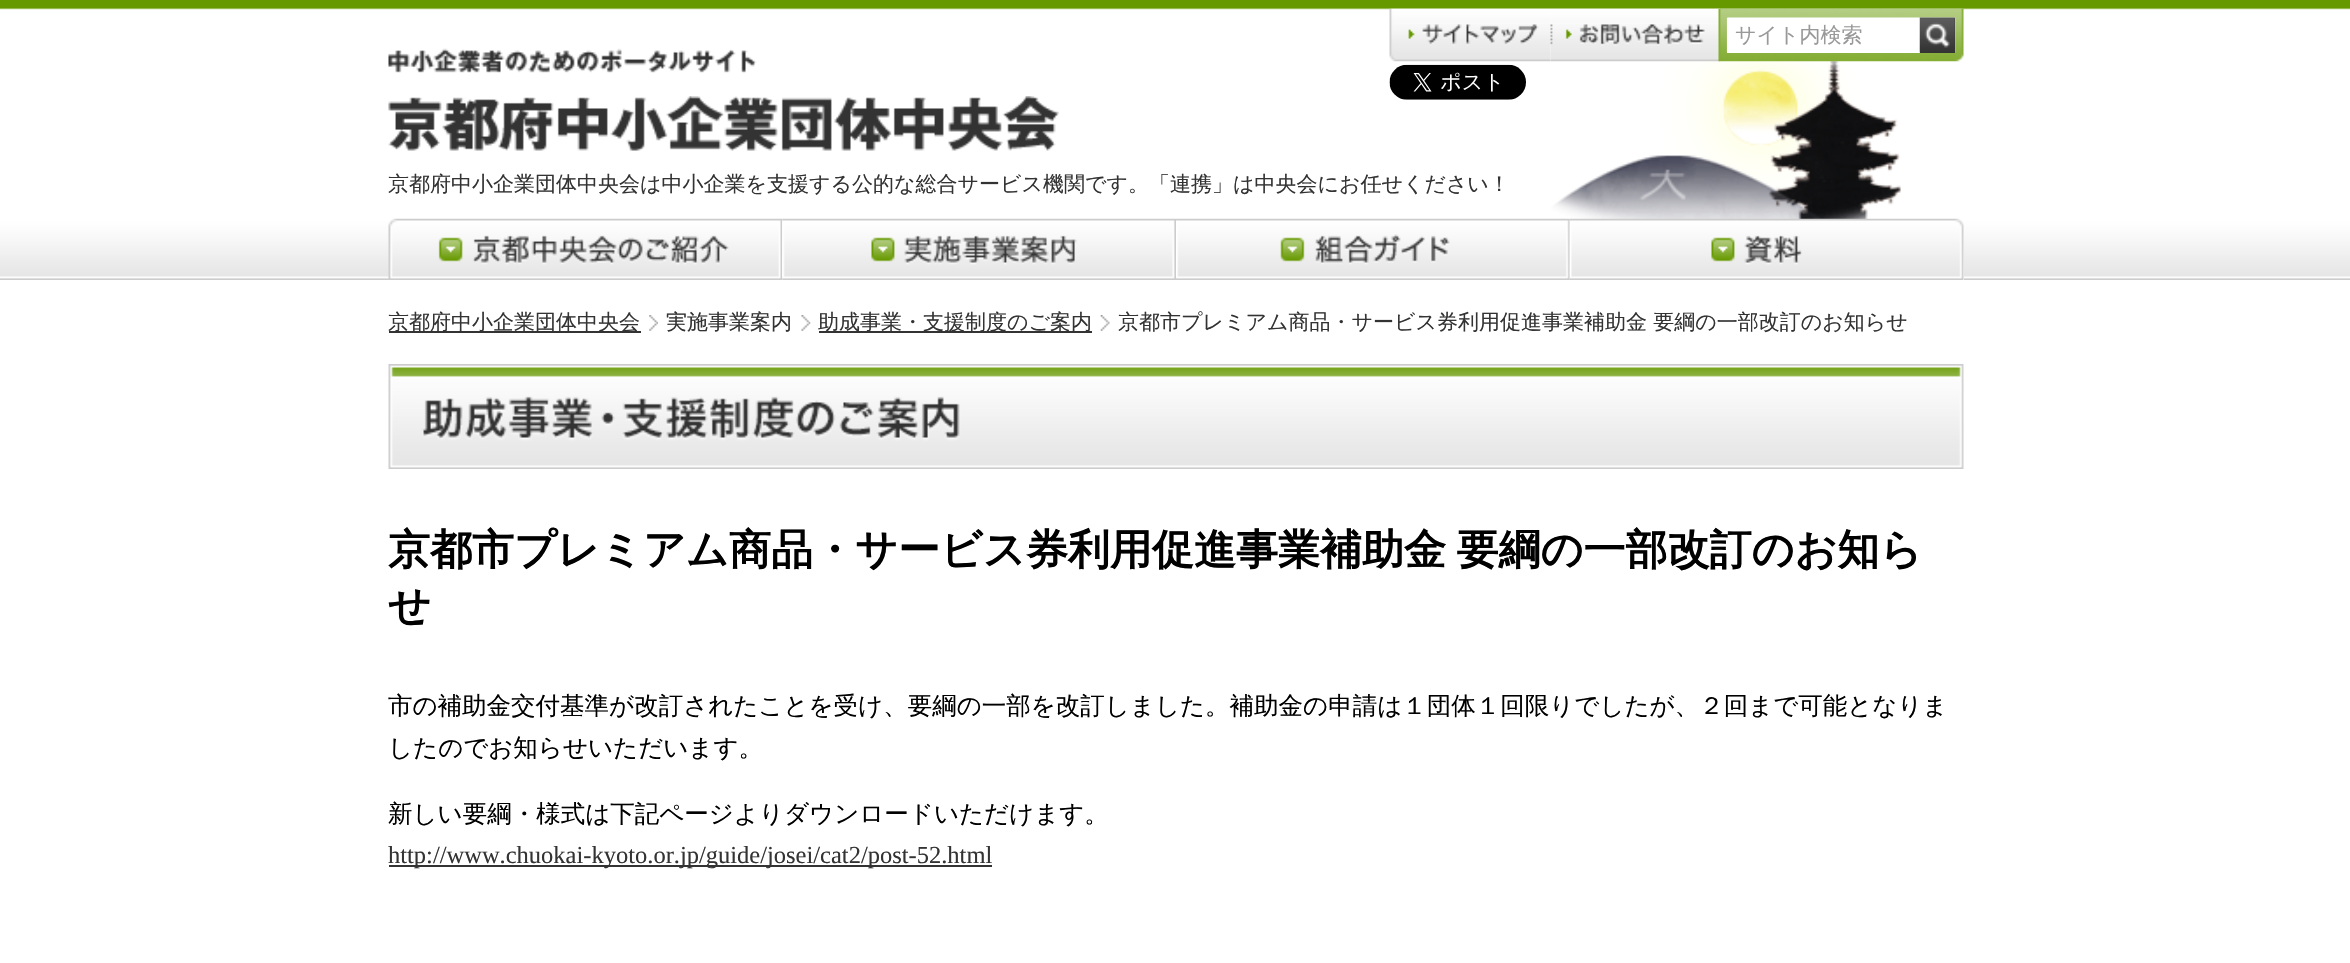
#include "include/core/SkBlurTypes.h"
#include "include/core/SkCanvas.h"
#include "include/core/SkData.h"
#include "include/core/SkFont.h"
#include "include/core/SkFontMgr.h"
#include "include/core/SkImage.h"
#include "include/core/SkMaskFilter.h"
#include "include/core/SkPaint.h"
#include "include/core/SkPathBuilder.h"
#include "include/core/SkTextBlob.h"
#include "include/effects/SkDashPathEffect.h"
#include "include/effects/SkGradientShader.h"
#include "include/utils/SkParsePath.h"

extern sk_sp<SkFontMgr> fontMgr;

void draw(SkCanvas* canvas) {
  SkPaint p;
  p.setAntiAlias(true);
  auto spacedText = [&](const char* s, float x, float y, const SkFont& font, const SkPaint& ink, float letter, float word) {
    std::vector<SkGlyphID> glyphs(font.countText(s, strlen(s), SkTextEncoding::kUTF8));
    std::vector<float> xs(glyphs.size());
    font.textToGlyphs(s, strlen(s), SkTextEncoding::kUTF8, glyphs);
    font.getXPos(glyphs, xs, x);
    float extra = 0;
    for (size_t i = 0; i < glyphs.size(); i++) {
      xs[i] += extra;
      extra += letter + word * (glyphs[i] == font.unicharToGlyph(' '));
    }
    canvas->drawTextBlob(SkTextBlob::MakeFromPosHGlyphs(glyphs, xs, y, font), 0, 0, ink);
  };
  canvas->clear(SK_ColorWHITE);
  canvas->drawImageRect(SkImages::DeferredFromEncodedData(SkData::MakeFromFileName("images/1.png")), SkRect::MakeLTRB(0, 0, 2350, 280), SkSamplingOptions());
  canvas->drawImageRect(SkImages::DeferredFromEncodedData(SkData::MakeFromFileName("images/2.png")), SkRect::MakeLTRB(1550, 61, 1901, 219), SkSamplingOptions());
  canvas->drawImageRect(SkImages::DeferredFromEncodedData(SkData::MakeFromFileName("images/3.png")), SkRect::MakeLTRB(1389, 8, 1551, 62), SkSamplingOptions());
  canvas->drawImageRect(SkImages::DeferredFromEncodedData(SkData::MakeFromFileName("images/4.png")), SkRect::MakeLTRB(1550, 8, 1721, 62), SkSamplingOptions());
  canvas->drawImageRect(SkImages::DeferredFromEncodedData(SkData::MakeFromFileName("images/5.png")), SkRect::MakeLTRB(1718, 8, 1964, 62), SkSamplingOptions());
  p.setColor(SK_ColorWHITE);
  canvas->drawRect(SkRect::MakeLTRB(1727, 18, 1920, 53), p);
  p.setColor(SkColorSetRGB(51, 51, 51));
  canvas->drawRect(SkRect::MakeLTRB(1920, 18, 1955, 53), p);
  canvas->drawImageRect(SkImages::DeferredFromEncodedData(SkData::MakeFromFileName("images/6.png")), SkRect::MakeLTRB(1919, 17, 1955, 53), SkSamplingOptions());
  canvas->drawImageRect(SkImages::DeferredFromEncodedData(SkData::MakeFromFileName("images/7.png")), SkRect::MakeLTRB(1389, 64, 1526, 100), SkSamplingOptions());
  canvas->drawImageRect(SkImages::DeferredFromEncodedData(SkData::MakeFromFileName("images/8.png")), SkRect::MakeLTRB(388, 48, 757, 73), SkSamplingOptions());
  canvas->drawImageRect(SkImages::DeferredFromEncodedData(SkData::MakeFromFileName("images/9.png")), SkRect::MakeLTRB(388, 96, 1059, 151), SkSamplingOptions());
  p.setColor(SK_ColorWHITE);
  canvas->drawRect(SkRect::MakeLTRB(389, 227, 1964, 280), p);
  canvas->drawImageRect(SkImages::DeferredFromEncodedData(SkData::MakeFromFileName("images/10.png")), SkRect::MakeLTRB(388, 218, 783, 280), SkSamplingOptions());
  canvas->drawImageRect(SkImages::DeferredFromEncodedData(SkData::MakeFromFileName("images/11.png")), SkRect::MakeLTRB(782, 218, 1176, 280), SkSamplingOptions());
  canvas->drawImageRect(SkImages::DeferredFromEncodedData(SkData::MakeFromFileName("images/12.png")), SkRect::MakeLTRB(1176, 218, 1570, 280), SkSamplingOptions());
  canvas->drawImageRect(SkImages::DeferredFromEncodedData(SkData::MakeFromFileName("images/13.png")), SkRect::MakeLTRB(1569, 218, 1964, 280), SkSamplingOptions());
  p.setColor(SkColorSetRGB(51, 51, 51));
  canvas->drawRect(SkRect::MakeLTRB(389, 331, 641, 333), p);
  canvas->drawImageRect(SkImages::DeferredFromEncodedData(SkData::MakeFromFileName("images/14.png")), SkRect::MakeLTRB(649, 315, 658, 331), SkSamplingOptions());
  canvas->drawImageRect(SkImages::DeferredFromEncodedData(SkData::MakeFromFileName("images/15.png")), SkRect::MakeLTRB(801, 315, 811, 331), SkSamplingOptions());
  canvas->drawRect(SkRect::MakeLTRB(819, 331, 1092, 333), p);
  canvas->drawImageRect(SkImages::DeferredFromEncodedData(SkData::MakeFromFileName("images/16.png")), SkRect::MakeLTRB(1100, 315, 1110, 331), SkSamplingOptions());
  canvas->drawImageRect(SkImages::DeferredFromEncodedData(SkData::MakeFromFileName("images/17.png")), SkRect::MakeLTRB(388, 364, 1964, 469), SkSamplingOptions());
  canvas->drawRect(SkRect::MakeLTRB(389, 865, 992, 867), p);
  SkFont font1(fontMgr->matchFamilyStyle("WenQuanYi Zen Hei", SkFontStyle(500, SkFontStyle::kNormal_Width, SkFontStyle::kUpright_Slant)), 21);
  font1.setSubpixel(true);
  p.setColor(SkColorSetRGB(153, 153, 153));
  canvas->drawString("サイト内検索", 1735, 42, font1, p);
  p.setColor(SkColorSetRGB(51, 51, 51));
  canvas->drawString("京都府中小企業団体中央会は中小企業を支援する公的な総合サービス機関です。「連携」は中央会にお任せください！", 388, 191, font1, p);
  canvas->drawString("京都府中小企業団体中央会", 388, 329, font1, p);
  canvas->drawString("実施事業案内", 666, 329, font1, p);
  canvas->drawString("助成事業・支援制度のご案内", 818, 329, font1, p);
  canvas->drawString("京都市プレミアム商品・サービス券利用促進事業補助金 要綱の一部改訂のお知らせ", 1118, 329, font1, p);
  SkFont font2(fontMgr->matchFamilyStyle("WenQuanYi Zen Hei", SkFontStyle::Bold()), 42);
  font2.setSubpixel(true);
  p.setColor(SK_ColorBLACK);
  spacedText("京都市プレミアム商品・サービス券利用促進事業補助金 要綱の一部改訂のお知ら", 388, 564, font2, p, 0, -2);
  canvas->drawString("せ", 388, 620, font2, p);
  SkFont font3(fontMgr->matchFamilyStyle("WenQuanYi Zen Hei", SkFontStyle(500, SkFontStyle::kNormal_Width, SkFontStyle::kUpright_Slant)), 24.5f);
  font3.setSubpixel(true);
  canvas->drawString("市の補助金交付基準が改訂されたことを受け、要綱の一部を改訂しました。補助金の申請は１団体１回限りでしたが、２回まで可能となりま", 388, 714, font3, p);
  canvas->drawString("したのでお知らせいただいます。", 388, 756, font3, p);
  canvas->drawString("新しい要綱・様式は下記ページよりダウンロードいただけます。", 388, 822, font3, p);
  SkFont font4(fontMgr->matchFamilyStyle("Liberation Serif", SkFontStyle::Normal()), 24.5f);
  font4.setSubpixel(true);
  p.setColor(SkColorSetRGB(51, 51, 51));
  canvas->drawString("http://www.chuokai-kyoto.or.jp/guide/josei/cat2/post-52.html", 388, 863, font4, p);
}
